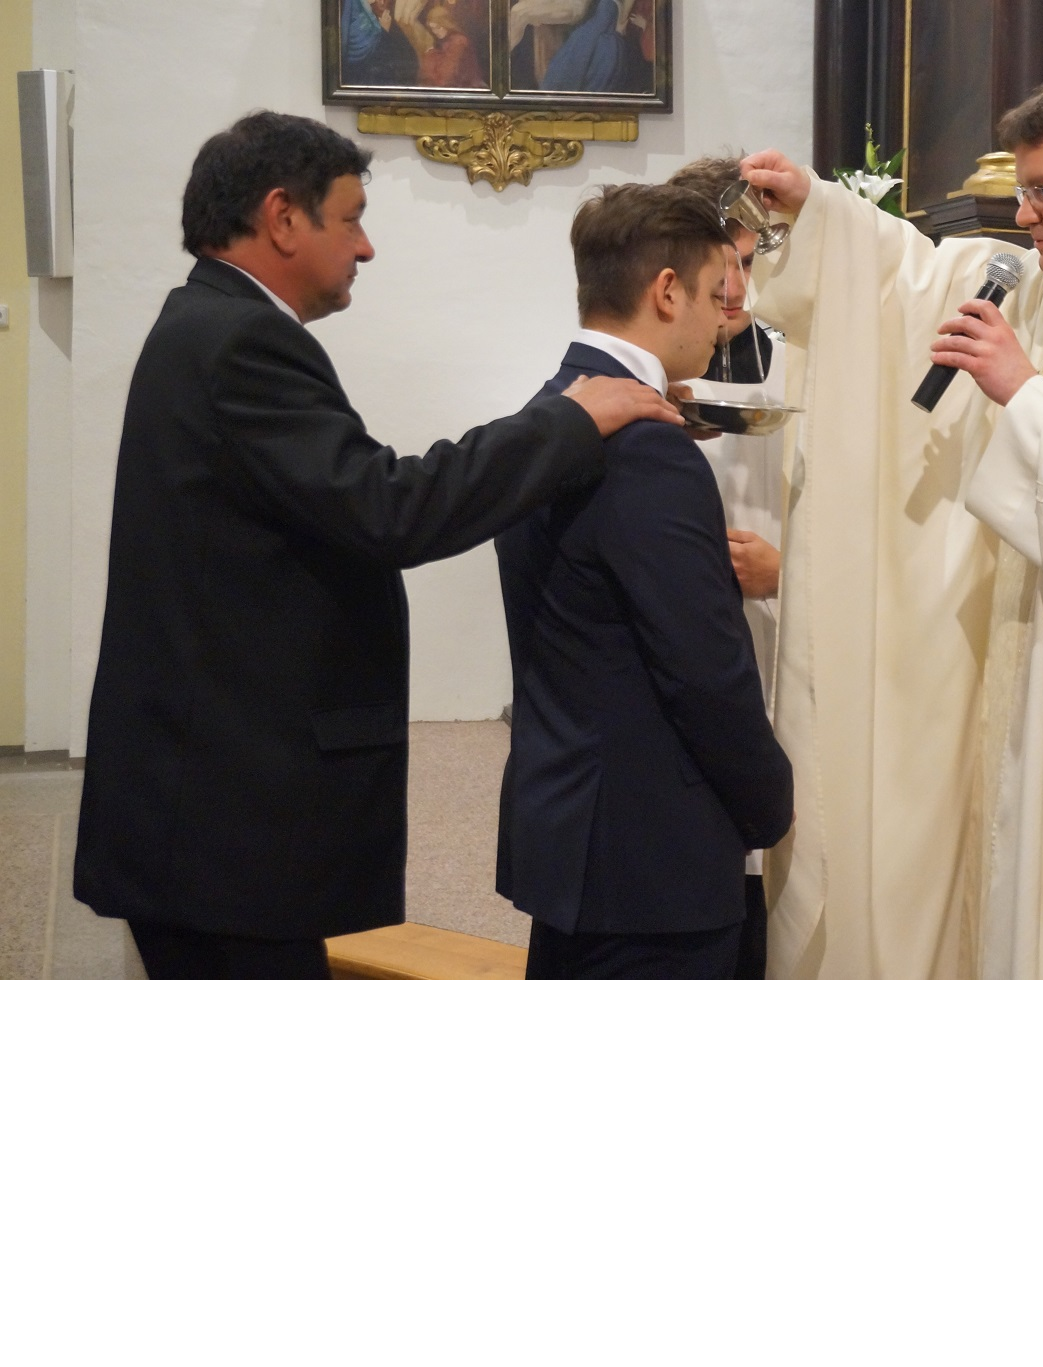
#include "include/core/SkBlurTypes.h"
#include "include/core/SkCanvas.h"
#include "include/core/SkData.h"
#include "include/core/SkFont.h"
#include "include/core/SkFontMgr.h"
#include "include/core/SkImage.h"
#include "include/core/SkMaskFilter.h"
#include "include/core/SkPaint.h"
#include "include/core/SkPathBuilder.h"
#include "include/core/SkTextBlob.h"
#include "include/effects/SkDashPathEffect.h"
#include "include/effects/SkGradientShader.h"
#include "include/utils/SkParsePath.h"

extern sk_sp<SkFontMgr> fontMgr;

void draw(SkCanvas* canvas) {
  SkPaint p;
  p.setAntiAlias(true);
  canvas->clear(SK_ColorWHITE);
  canvas->drawImageRect(SkImages::DeferredFromEncodedData(SkData::MakeFromFileName("images/1.png")), SkRect::MakeLTRB(0, 0, 1043, 980), SkSamplingOptions());
}
